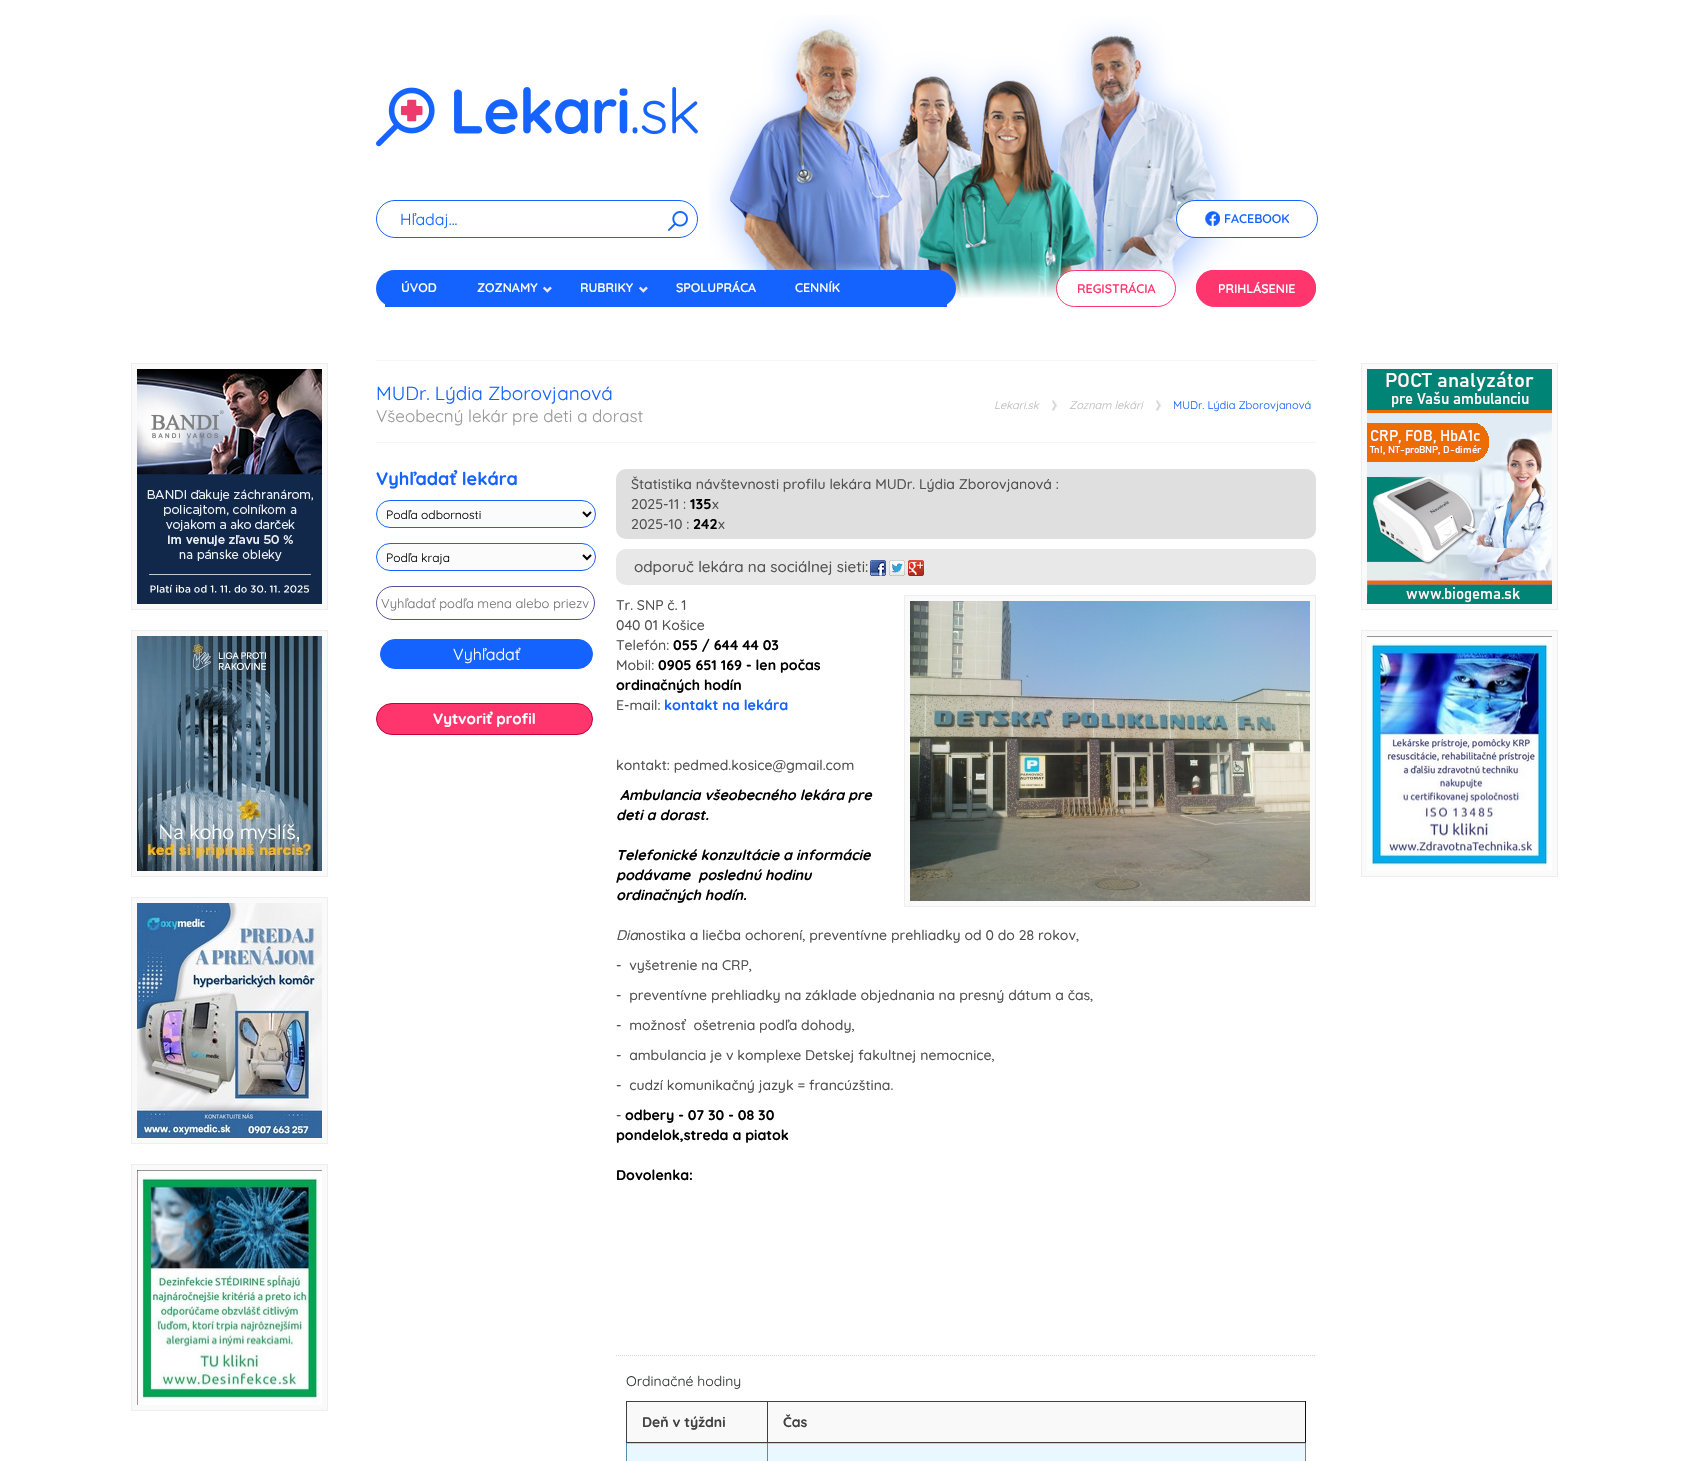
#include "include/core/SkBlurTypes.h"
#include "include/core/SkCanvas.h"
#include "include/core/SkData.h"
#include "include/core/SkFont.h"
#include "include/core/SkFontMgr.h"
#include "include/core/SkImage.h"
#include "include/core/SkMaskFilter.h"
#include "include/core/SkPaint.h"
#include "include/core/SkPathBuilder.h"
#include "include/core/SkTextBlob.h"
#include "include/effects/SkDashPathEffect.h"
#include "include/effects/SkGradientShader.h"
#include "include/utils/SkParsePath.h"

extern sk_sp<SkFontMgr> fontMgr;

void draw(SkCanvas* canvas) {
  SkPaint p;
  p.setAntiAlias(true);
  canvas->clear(SK_ColorWHITE);
  p.setColor(SkColorSetRGB(250, 250, 250));
  canvas->drawRect(SkRect::MakeLTRB(131.5f, 363.5f, 327.5f, 609.5f), p);
  p.setStyle(SkPaint::kStroke_Style);
  p.setStrokeWidth(1);
  p.setColor(SkColorSetRGB(238, 238, 238));
  canvas->drawRect(SkRect::MakeLTRB(131.5f, 363.5f, 327.5f, 609.5f), p);
  canvas->drawImageRect(SkImages::DeferredFromEncodedData(SkData::MakeFromFileName("images/1.png")), SkRect::MakeLTRB(137, 369, 322, 604), SkSamplingOptions());
  p.setStyle(SkPaint::kFill_Style);
  p.setColor(SkColorSetRGB(250, 250, 250));
  canvas->drawRect(SkRect::MakeLTRB(131.5f, 630.5f, 327.5f, 876.5f), p);
  p.setStyle(SkPaint::kStroke_Style);
  p.setColor(SkColorSetRGB(238, 238, 238));
  canvas->drawRect(SkRect::MakeLTRB(131.5f, 630.5f, 327.5f, 876.5f), p);
  canvas->drawImageRect(SkImages::DeferredFromEncodedData(SkData::MakeFromFileName("images/2.png")), SkRect::MakeLTRB(137, 636, 322, 871), SkSamplingOptions());
  p.setStyle(SkPaint::kFill_Style);
  p.setColor(SkColorSetRGB(250, 250, 250));
  canvas->drawRect(SkRect::MakeLTRB(131.5f, 897.5f, 327.5f, 1143.5f), p);
  p.setStyle(SkPaint::kStroke_Style);
  p.setColor(SkColorSetRGB(238, 238, 238));
  canvas->drawRect(SkRect::MakeLTRB(131.5f, 897.5f, 327.5f, 1143.5f), p);
  canvas->drawImageRect(SkImages::DeferredFromEncodedData(SkData::MakeFromFileName("images/3.png")), SkRect::MakeLTRB(137, 903, 322, 1138), SkSamplingOptions());
  p.setStyle(SkPaint::kFill_Style);
  p.setColor(SkColorSetRGB(250, 250, 250));
  canvas->drawRect(SkRect::MakeLTRB(131.5f, 1164.5f, 327.5f, 1410.5f), p);
  p.setStyle(SkPaint::kStroke_Style);
  p.setColor(SkColorSetRGB(238, 238, 238));
  canvas->drawRect(SkRect::MakeLTRB(131.5f, 1164.5f, 327.5f, 1410.5f), p);
  canvas->drawImageRect(SkImages::DeferredFromEncodedData(SkData::MakeFromFileName("images/4.png")), SkRect::MakeLTRB(137, 1170, 322, 1405), SkSamplingOptions());
  canvas->drawImageRect(SkImages::DeferredFromEncodedData(SkData::MakeFromFileName("images/5.png")), SkRect::MakeLTRB(376, 87, 698, 147), SkSamplingOptions());
  canvas->drawImageRect(SkImages::DeferredFromEncodedData(SkData::MakeFromFileName("images/6.png")), SkRect::MakeLTRB(709, 15, 1241, 298), SkSamplingOptions());
  p.setColor(SkColorSetRGB(21, 99, 255));
  canvas->drawRoundRect(SkRect::MakeLTRB(376.5f, 200.5f, 697.5f, 237.5f), 18.5f, 18.5f, p);
  p.setStyle(SkPaint::kFill_Style);
  p.setColor(SK_ColorWHITE);
  canvas->drawPath(SkPathBuilder().moveTo(395, 201).lineTo(557, 201).lineTo(557, 237).lineTo(395, 237).cubicTo(393.5f, 237, 392, 235.5f, 392, 234).lineTo(392, 204).cubicTo(392, 202.5f, 393.5f, 201, 395, 201).close().detach(), p);
  canvas->drawImageRect(SkImages::DeferredFromEncodedData(SkData::MakeFromFileName("images/7.png")), SkRect::MakeLTRB(668, 211, 688, 231), SkSamplingOptions());
  canvas->drawRoundRect(SkRect::MakeLTRB(1176.5f, 200.5f, 1317.5f, 237.5f), 18.5f, 18.5f, p);
  p.setStyle(SkPaint::kStroke_Style);
  p.setColor(SkColorSetRGB(21, 99, 255));
  canvas->drawRoundRect(SkRect::MakeLTRB(1176.5f, 200.5f, 1317.5f, 237.5f), 18.5f, 18.5f, p);
  canvas->drawImageRect(SkImages::DeferredFromEncodedData(SkData::MakeFromFileName("images/8.png")), SkRect::MakeLTRB(1205, 211, 1220, 226), SkSamplingOptions());
  p.setStyle(SkPaint::kFill_Style);
  canvas->drawRoundRect(SkRect::MakeLTRB(376, 270, 956, 307), 18.5f, 18.5f, p);
  canvas->drawRect(SkRect::MakeLTRB(385, 304, 947, 307), p);
  canvas->drawImageRect(SkImages::DeferredFromEncodedData(SkData::MakeFromFileName("images/9.png")), SkRect::MakeLTRB(543, 286, 552, 293), SkSamplingOptions());
  canvas->drawImageRect(SkImages::DeferredFromEncodedData(SkData::MakeFromFileName("images/9.png")), SkRect::MakeLTRB(639, 286, 648, 293), SkSamplingOptions());
  p.setColor(SK_ColorWHITE);
  canvas->drawRoundRect(SkRect::MakeLTRB(1056.5f, 270.5f, 1175.5f, 306.5f), 18, 18, p);
  p.setStyle(SkPaint::kStroke_Style);
  p.setColor(SkColorSetRGB(255, 53, 109));
  canvas->drawRoundRect(SkRect::MakeLTRB(1056.5f, 270.5f, 1175.5f, 306.5f), 18, 18, p);
  p.setStyle(SkPaint::kFill_Style);
  canvas->drawRoundRect(SkRect::MakeLTRB(1196, 270, 1316, 305), 17.5f, 17.5f, p);
  canvas->drawRoundRect(SkRect::MakeLTRB(1196.5f, 270.5f, 1315.5f, 306.5f), 18, 18, p);
  p.setStyle(SkPaint::kStroke_Style);
  canvas->drawRoundRect(SkRect::MakeLTRB(1196.5f, 270.5f, 1315.5f, 306.5f), 18, 18, p);
  p.setStyle(SkPaint::kFill_Style);
  p.setColor(SkColorSetRGB(245, 245, 245));
  canvas->drawRect(SkRect::MakeLTRB(376, 360, 1316, 361), p);
  canvas->drawRect(SkRect::MakeLTRB(376, 442, 1316, 443), p);
  canvas->drawImageRect(SkImages::DeferredFromEncodedData(SkData::MakeFromFileName("images/10.png")), SkRect::MakeLTRB(1052, 400, 1058, 411), SkSamplingOptions());
  canvas->drawImageRect(SkImages::DeferredFromEncodedData(SkData::MakeFromFileName("images/10.png")), SkRect::MakeLTRB(1156, 400, 1162, 411), SkSamplingOptions());
  p.setColor(SkColorSetRGB(251, 251, 251));
  canvas->drawRoundRect(SkRect::MakeLTRB(376.5f, 500.5f, 595.5f, 527.5f), 13.5f, 13.5f, p);
  p.setStyle(SkPaint::kStroke_Style);
  p.setColor(SkColorSetRGB(21, 99, 255));
  canvas->drawRoundRect(SkRect::MakeLTRB(376.5f, 500.5f, 595.5f, 527.5f), 13.5f, 13.5f, p);
  p.setStrokeWidth(2);
  p.setColor(SK_ColorBLACK);
  canvas->drawPath(SkPathBuilder().moveTo(583, 512).lineTo(587, 516).lineTo(591, 512).detach(), p);
  p.setStyle(SkPaint::kFill_Style);
  p.setColor(SkColorSetRGB(251, 251, 251));
  canvas->drawRoundRect(SkRect::MakeLTRB(376.5f, 543.5f, 595.5f, 570.5f), 13.5f, 13.5f, p);
  p.setStyle(SkPaint::kStroke_Style);
  p.setStrokeWidth(1);
  p.setColor(SkColorSetRGB(21, 99, 255));
  canvas->drawRoundRect(SkRect::MakeLTRB(376.5f, 543.5f, 595.5f, 570.5f), 13.5f, 13.5f, p);
  p.setStrokeWidth(2);
  p.setColor(SK_ColorBLACK);
  canvas->drawPath(SkPathBuilder().moveTo(583, 555).lineTo(587, 559).lineTo(591, 555).detach(), p);
  p.setStrokeWidth(1);
  p.setColor(SkColorSetRGB(81, 81, 153));
  canvas->drawRoundRect(SkRect::MakeLTRB(376.5f, 586.5f, 594.5f, 619.5f), 16.5f, 16.5f, p);
  p.setStyle(SkPaint::kFill_Style);
  p.setColor(SkColorSetRGB(21, 99, 255));
  canvas->drawRoundRect(SkRect::MakeLTRB(380.5f, 639.5f, 592.5f, 668.5f), 14.5f, 14.5f, p);
  p.setStyle(SkPaint::kStroke_Style);
  canvas->drawRoundRect(SkRect::MakeLTRB(380.5f, 639.5f, 592.5f, 668.5f), 14.5f, 14.5f, p);
  p.setStyle(SkPaint::kFill_Style);
  p.setColor(SkColorSetRGB(255, 53, 109));
  canvas->drawRoundRect(SkRect::MakeLTRB(376.5f, 703.5f, 592.5f, 734.5f), 15.5f, 15.5f, p);
  p.setStyle(SkPaint::kStroke_Style);
  p.setColor(SkColorSetRGB(192, 0, 54));
  canvas->drawRoundRect(SkRect::MakeLTRB(376.5f, 703.5f, 592.5f, 734.5f), 15.5f, 15.5f, p);
  p.setStyle(SkPaint::kFill_Style);
  p.setColor(SkColorSetRGB(223, 223, 223));
  canvas->drawRoundRect(SkRect::MakeLTRB(616, 469, 1316, 539), 10, 10, p);
  p.setColor(SkColorSetRGB(232, 232, 232));
  canvas->drawRoundRect(SkRect::MakeLTRB(616, 549, 1316, 585), 10, 10, p);
  canvas->drawImageRect(SkImages::DeferredFromEncodedData(SkData::MakeFromFileName("images/11.png")), SkRect::MakeLTRB(870, 560, 886, 576), SkSamplingOptions());
  canvas->drawImageRect(SkImages::DeferredFromEncodedData(SkData::MakeFromFileName("images/12.png")), SkRect::MakeLTRB(889, 560, 905, 576), SkSamplingOptions());
  canvas->drawImageRect(SkImages::DeferredFromEncodedData(SkData::MakeFromFileName("images/13.png")), SkRect::MakeLTRB(908, 560, 924, 576), SkSamplingOptions());
  p.setColor(SkColorSetRGB(250, 250, 250));
  canvas->drawRect(SkRect::MakeLTRB(904.5f, 595.5f, 1315.5f, 906.5f), p);
  p.setStyle(SkPaint::kStroke_Style);
  p.setColor(SkColorSetRGB(238, 238, 238));
  canvas->drawRect(SkRect::MakeLTRB(904.5f, 595.5f, 1315.5f, 906.5f), p);
  canvas->drawImageRect(SkImages::DeferredFromEncodedData(SkData::MakeFromFileName("images/14.png")), SkRect::MakeLTRB(910, 601, 1310, 901), SkSamplingOptions());
  p.setColor(SkColorSetRGB(212, 212, 212));
  p.setPathEffect(SkDashPathEffect::Make({{1, 1}}, 0));
  canvas->drawPath(SkPathBuilder().moveTo(616, 1355.5f).lineTo(1316, 1355.5f).detach(), p);
  p.setPathEffect(nullptr);
  p.setStyle(SkPaint::kFill_Style);
  p.setColor(SkColorSetRGB(249, 249, 249));
  canvas->drawRect(SkRect::MakeLTRB(627, 1402, 767, 1442), p);
  p.setColor(SkColorSetRGB(64, 64, 64));
  canvas->drawRect(SkRect::MakeLTRB(626, 1401, 1306, 1402), p);
  canvas->drawRect(SkRect::MakeLTRB(626, 1442, 767, 1443), p);
  canvas->drawRect(SkRect::MakeLTRB(626, 1401, 627, 1443), p);
  p.setColor(SkColorSetRGB(249, 249, 249));
  canvas->drawRect(SkRect::MakeLTRB(768, 1402, 1305, 1442), p);
  p.setColor(SkColorSetRGB(17, 17, 17));
  canvas->drawRect(SkRect::MakeLTRB(1305, 1401, 1306, 1443), p);
  p.setColor(SkColorSetRGB(64, 64, 64));
  canvas->drawRect(SkRect::MakeLTRB(767, 1442, 1306, 1443), p);
  canvas->drawRect(SkRect::MakeLTRB(767, 1401, 768, 1443), p);
  p.setColor(SkColorSetRGB(233, 247, 254));
  canvas->drawRect(SkRect::MakeLTRB(626.5f, 1443.5f, 1305.5f, 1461.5f), p);
  p.setStyle(SkPaint::kStroke_Style);
  p.setColor(SkColorSetRGB(182, 215, 232));
  canvas->drawRect(SkRect::MakeLTRB(626.5f, 1443.5f, 1305.5f, 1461.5f), p);
  p.setStyle(SkPaint::kFill_Style);
  p.setColor(SkColorSetRGB(80, 145, 178));
  canvas->drawRect(SkRect::MakeLTRB(626, 1443, 627, 1461), p);
  p.setColor(SkColorSetRGB(128, 128, 128));
  canvas->drawRect(SkRect::MakeLTRB(1305, 1443, 1306, 1461), p);
  p.setColor(SkColorSetRGB(80, 145, 178));
  canvas->drawRect(SkRect::MakeLTRB(767, 1443, 768, 1461), p);
  p.setColor(SkColorSetRGB(250, 250, 250));
  canvas->drawRect(SkRect::MakeLTRB(1361.5f, 363.5f, 1557.5f, 609.5f), p);
  p.setStyle(SkPaint::kStroke_Style);
  p.setColor(SkColorSetRGB(238, 238, 238));
  canvas->drawRect(SkRect::MakeLTRB(1361.5f, 363.5f, 1557.5f, 609.5f), p);
  canvas->drawImageRect(SkImages::DeferredFromEncodedData(SkData::MakeFromFileName("images/15.png")), SkRect::MakeLTRB(1367, 369, 1552, 604), SkSamplingOptions());
  p.setStyle(SkPaint::kFill_Style);
  p.setColor(SkColorSetRGB(250, 250, 250));
  canvas->drawRect(SkRect::MakeLTRB(1361.5f, 630.5f, 1557.5f, 876.5f), p);
  p.setStyle(SkPaint::kStroke_Style);
  p.setColor(SkColorSetRGB(238, 238, 238));
  canvas->drawRect(SkRect::MakeLTRB(1361.5f, 630.5f, 1557.5f, 876.5f), p);
  canvas->drawImageRect(SkImages::DeferredFromEncodedData(SkData::MakeFromFileName("images/16.png")), SkRect::MakeLTRB(1367, 636, 1552, 871), SkSamplingOptions());
  SkFont font1(fontMgr->matchFamilyStyle("Quicksand", SkFontStyle::Normal()), 16);
  font1.setSubpixel(true);
  p.setStyle(SkPaint::kFill_Style);
  p.setColor(SkColorSetRGB(21, 99, 255));
  canvas->drawString("Hľadaj...", 400, 225, font1, p);
  SkFont font2(fontMgr->matchFamilyStyle("Quicksand", SkFontStyle(600, SkFontStyle::kNormal_Width, SkFontStyle::kUpright_Slant)), 12.5f);
  font2.setSubpixel(true);
  canvas->drawString("FACEBOOK", 1224, 223, font2, p);
  p.setColor(SK_ColorWHITE);
  canvas->drawString("ÚVOD", 401, 292, font2, p);
  canvas->drawString("ZOZNAMY", 477, 292, font2, p);
  canvas->drawString("RUBRIKY", 580, 292, font2, p);
  canvas->drawString("SPOLUPRÁCA", 676, 292, font2, p);
  canvas->drawString("CENNÍK", 795, 292, font2, p);
  p.setColor(SkColorSetRGB(255, 53, 109));
  canvas->drawString("REGISTRÁCIA", 1077, 293, font2, p);
  p.setColor(SK_ColorWHITE);
  canvas->drawString("PRIHLÁSENIE", 1218, 293, font2, p);
  SkFont font3(fontMgr->matchFamilyStyle("Quicksand", SkFontStyle::Normal()), 19);
  font3.setSubpixel(true);
  p.setColor(SkColorSetRGB(21, 99, 255));
  canvas->drawString("MUDr. Lýdia Zborovjanová", 376, 400, font3, p);
  SkFont font4(fontMgr->matchFamilyStyle("Quicksand", SkFontStyle::Normal()), 17);
  font4.setSubpixel(true);
  p.setColor(SkColorSetRGB(153, 153, 153));
  canvas->drawString("Všeobecný lekár pre deti a dorast", 376, 422, font4, p);
  SkFont font5(fontMgr->matchFamilyStyle("Quicksand", SkFontStyle::Italic()), 11.1f);
  font5.setSubpixel(true);
  p.setColor(SkColorSetRGB(189, 189, 189));
  canvas->drawString("Lekari.sk", 994, 409, font5, p);
  canvas->drawString("Zoznam lekári", 1069, 409, font5, p);
  SkFont font6(fontMgr->matchFamilyStyle("Quicksand", SkFontStyle::Normal()), 11.1f);
  font6.setSubpixel(true);
  p.setColor(SkColorSetRGB(21, 99, 255));
  canvas->drawString("MUDr. Lýdia Zborovjanová", 1173, 409, font6, p);
  SkFont font7(fontMgr->matchFamilyStyle("Quicksand", SkFontStyle::Bold()), 18);
  font7.setSubpixel(true);
  canvas->drawString("Vyhľadať lekára", 376, 485, font7, p);
  SkFont font8(fontMgr->matchFamilyStyle("Quicksand", SkFontStyle::Normal()), 12);
  font8.setSubpixel(true);
  p.setColor(SK_ColorBLACK);
  canvas->drawString("Podľa odbornosti", 386, 519, font8, p);
  canvas->drawString("Podľa kraja", 386, 562, font8, p);
  SkFont font9(fontMgr->matchFamilyStyle("Quicksand", SkFontStyle::Normal()), 13);
  font9.setSubpixel(true);
  p.setColor(SkColorSetRGB(117, 117, 117));
  canvas->drawString("Vyhľadať podľa mena alebo priezv", 381, 608, font9, p);
  p.setColor(SK_ColorWHITE);
  canvas->drawString("Vyhľadať", 453, 660, font1, p);
  SkFont font10(fontMgr->matchFamilyStyle("Quicksand", SkFontStyle::Bold()), 15);
  font10.setSubpixel(true);
  canvas->drawString("Vytvoriť profil", 433, 724, font10, p);
  SkFont font11(fontMgr->matchFamilyStyle("Quicksand", SkFontStyle(500, SkFontStyle::kNormal_Width, SkFontStyle::kUpright_Slant)), 14);
  font11.setSubpixel(true);
  p.setColor(SkColorSetRGB(81, 81, 81));
  canvas->drawString("Štatistika návštevnosti profilu lekára MUDr. Lýdia Zborovjanová :", 631, 489, font11, p);
  SkFont font12(fontMgr->matchFamilyStyle("Quicksand", SkFontStyle(500, SkFontStyle::kNormal_Width, SkFontStyle::kUpright_Slant)), 14.1f);
  font12.setSubpixel(true);
  canvas->drawString("2025-11 :", 631, 509, font12, p);
  SkFont font13(fontMgr->matchFamilyStyle("Quicksand", SkFontStyle::Bold()), 14.25f);
  font13.setSubpixel(true);
  p.setColor(SK_ColorBLACK);
  canvas->drawString("135", 690, 509, font13, p);
  p.setColor(SkColorSetRGB(81, 81, 81));
  canvas->drawString("x", 712, 509, font12, p);
  canvas->drawString("2025-10 :", 631, 529, font12, p);
  p.setColor(SK_ColorBLACK);
  canvas->drawString("242", 693, 529, font13, p);
  p.setColor(SkColorSetRGB(81, 81, 81));
  canvas->drawString("x", 718, 529, font12, p);
  SkFont font14(fontMgr->matchFamilyStyle("Quicksand", SkFontStyle(500, SkFontStyle::kNormal_Width, SkFontStyle::kUpright_Slant)), 15.2f);
  font14.setSubpixel(true);
  canvas->drawString("odporuč lekára na sociálnej sieti:", 634, 572, font14, p);
  canvas->drawString("Tr. SNP č. 1", 616, 610, font11, p);
  canvas->drawString("040 01 Košice", 616, 630, font11, p);
  canvas->drawString("Telefón:", 616, 650, font11, p);
  SkFont font15(fontMgr->matchFamilyStyle("Quicksand", SkFontStyle::Bold()), 14.1f);
  font15.setSubpixel(true);
  p.setColor(SK_ColorBLACK);
  canvas->drawString("055 / 644 44 03", 673, 650, font15, p);
  p.setColor(SkColorSetRGB(81, 81, 81));
  canvas->drawString("Mobil:", 616, 670, font11, p);
  p.setColor(SK_ColorBLACK);
  canvas->drawString("0905 651 169 - len počas", 658, 670, font15, p);
  canvas->drawString("ordinačných hodín", 616, 690, font15, p);
  p.setColor(SkColorSetRGB(81, 81, 81));
  canvas->drawString("E-mail:", 616, 710, font11, p);
  p.setColor(SkColorSetRGB(21, 99, 255));
  canvas->drawString("kontakt na lekára", 664, 710, font13, p);
  p.setColor(SkColorSetRGB(81, 81, 81));
  canvas->drawString("kontakt: pedmed.kosice@gmail.com", 616, 770, font11, p);
  SkFont font16(fontMgr->matchFamilyStyle("Quicksand", SkFontStyle::BoldItalic()), 14.25f);
  font16.setSubpixel(true);
  p.setColor(SK_ColorBLACK);
  canvas->drawString("Ambulancia všeobecného lekára pre", 620, 800, font16, p);
  canvas->drawString("deti a dorast.", 616, 820, font16, p);
  canvas->drawString("Telefonické konzultácie a informácie", 616, 860, font16, p);
  canvas->drawString("podávame  poslednú hodinu", 616, 880, font16, p);
  canvas->drawString("ordinačných hodín.", 616, 900, font16, p);
  SkFont font17(fontMgr->matchFamilyStyle("Quicksand", SkFontStyle(500, SkFontStyle::kNormal_Width, SkFontStyle::kItalic_Slant)), 14.1f);
  font17.setSubpixel(true);
  p.setColor(SkColorSetRGB(81, 81, 81));
  canvas->drawString("Dia", 616, 940, font17, p);
  canvas->drawString("nostika a liečba ochorení, preventívne prehliadky od 0 do 28 rokov,", 638, 940, font11, p);
  canvas->drawString("-  vyšetrenie na CRP,", 616, 970, font11, p);
  canvas->drawString("-  preventívne prehliadky na základe objednania na presný dátum a čas,", 616, 1000, font11, p);
  canvas->drawString("-  možnosť  ošetrenia podľa dohody,", 616, 1030, font11, p);
  canvas->drawString("-  ambulancia je v komplexe Detskej fakultnej nemocnice,", 616, 1060, font11, p);
  canvas->drawString("-  cudzí komunikačný jazyk = francúzština.", 616, 1090, font11, p);
  canvas->drawString("-", 616, 1120, font11, p);
  p.setColor(SK_ColorBLACK);
  canvas->drawString("odbery - 07 30 - 08 30", 625, 1120, font15, p);
  canvas->drawString("pondelok,streda a piatok", 616, 1140, font15, p);
  canvas->drawString("Dovolenka:", 616, 1180, font15, p);
  SkFont font18(fontMgr->matchFamilyStyle("Quicksand", SkFontStyle::Normal()), 14);
  font18.setSubpixel(true);
  p.setColor(SkColorSetRGB(52, 55, 57));
  canvas->drawString("Ordinačné hodiny", 626, 1386, font18, p);
  SkFont font19(fontMgr->matchFamilyStyle("Quicksand", SkFontStyle::Bold()), 14);
  font19.setSubpixel(true);
  p.setColor(SkColorSetRGB(64, 64, 64));
  canvas->drawString("Deň v týždni", 642, 1427, font19, p);
  canvas->drawString("Čas", 783, 1427, font19, p);
}
